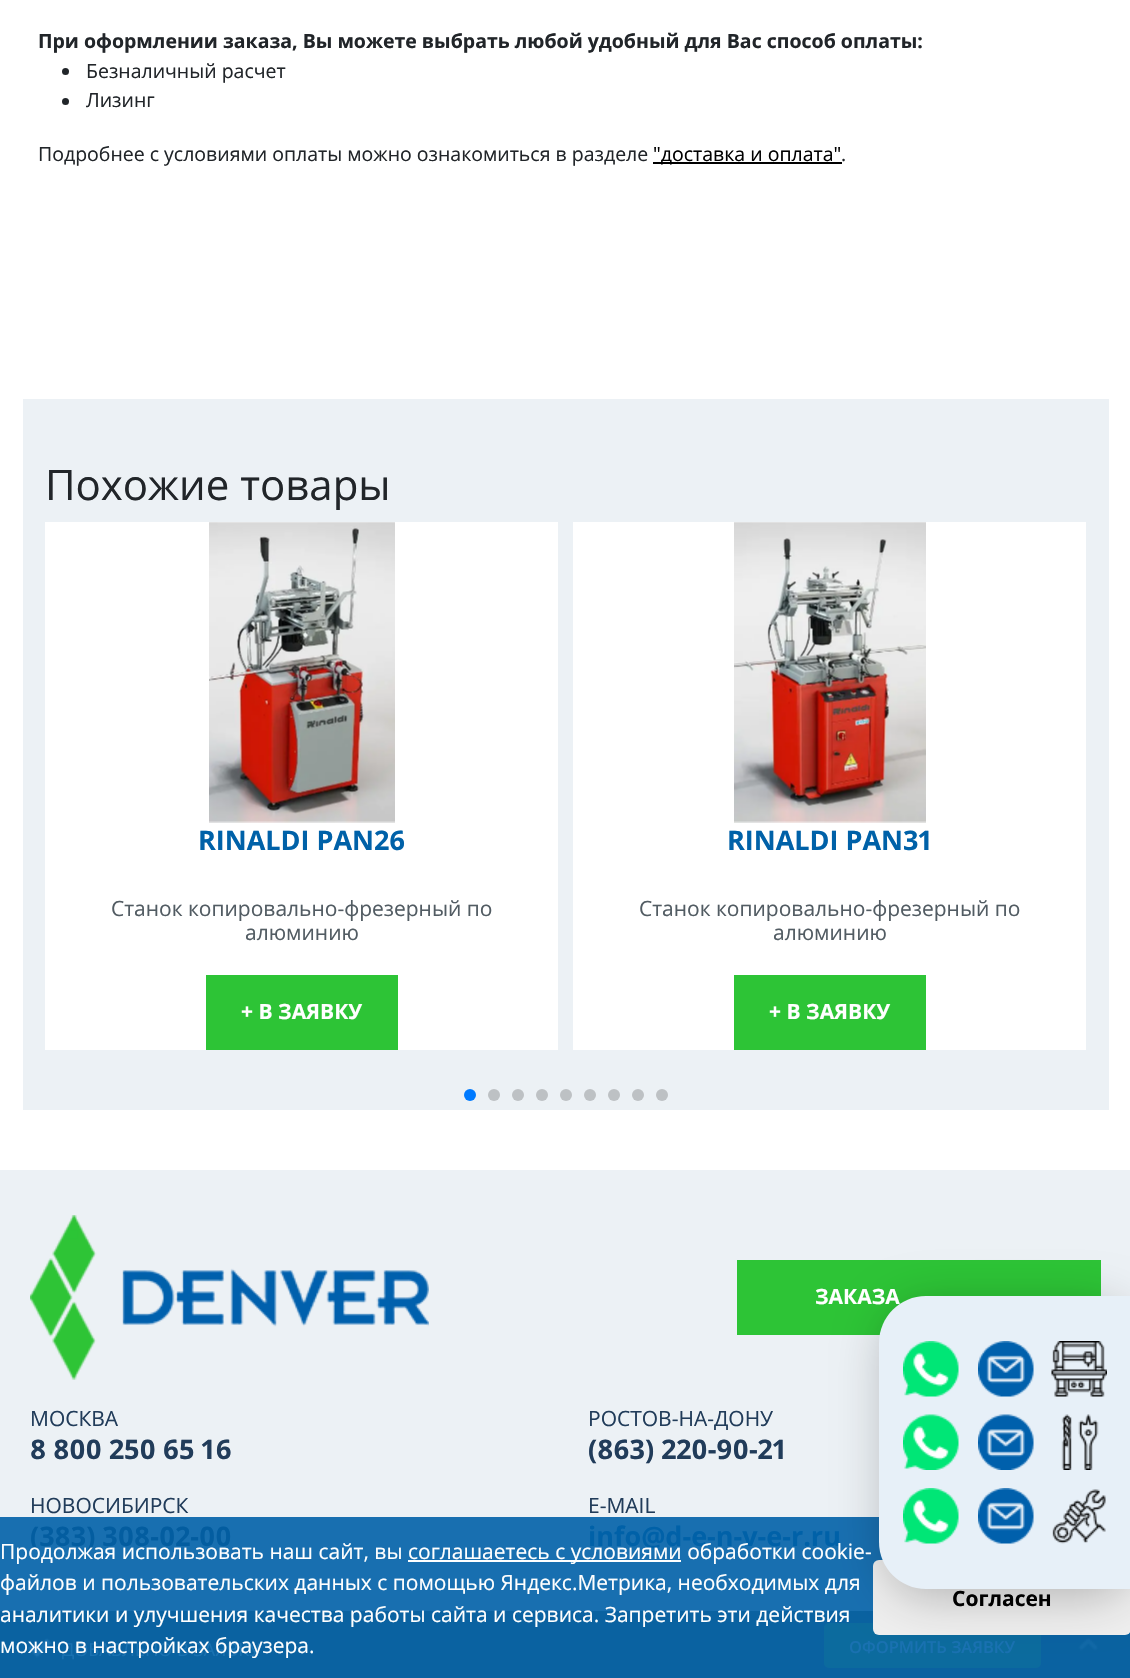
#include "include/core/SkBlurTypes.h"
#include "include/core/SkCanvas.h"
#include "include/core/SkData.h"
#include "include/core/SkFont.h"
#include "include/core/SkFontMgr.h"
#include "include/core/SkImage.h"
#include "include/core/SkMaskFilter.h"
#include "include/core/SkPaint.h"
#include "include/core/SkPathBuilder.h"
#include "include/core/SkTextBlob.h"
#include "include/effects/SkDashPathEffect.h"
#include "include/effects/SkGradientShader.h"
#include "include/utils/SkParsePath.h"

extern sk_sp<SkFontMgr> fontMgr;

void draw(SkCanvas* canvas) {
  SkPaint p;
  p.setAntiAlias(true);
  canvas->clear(SK_ColorWHITE);
  p.setColor(SkColorSetRGB(33, 37, 41));
  canvas->drawCircle(65.5f, 71.5f, 3.5f, p);
  canvas->drawCircle(65.5f, 101.5f, 3.5f, p);
  p.setColor(SK_ColorBLACK);
  canvas->drawRect(SkRect::MakeLTRB(653, 162, 842, 164), p);
  p.setColor(SkColorSetRGB(236, 241, 245));
  canvas->drawRect(SkRect::MakeLTRB(23, 399, 1109, 1110), p);
  p.setColor(SK_ColorWHITE);
  canvas->drawRect(SkRect::MakeLTRB(45, 522, 558, 1050), p);
  canvas->drawImageRect(SkImages::DeferredFromEncodedData(SkData::MakeFromFileName("images/1.png")), SkRect::MakeLTRB(209, 522, 395, 823), SkSamplingOptions());
  p.setColor(SkColorSetRGB(45, 196, 54));
  canvas->drawRect(SkRect::MakeLTRB(206, 975, 398, 1050), p);
  p.setColor(SK_ColorWHITE);
  canvas->drawRect(SkRect::MakeLTRB(573, 522, 1086, 1050), p);
  canvas->drawImageRect(SkImages::DeferredFromEncodedData(SkData::MakeFromFileName("images/2.png")), SkRect::MakeLTRB(734, 522, 926, 823), SkSamplingOptions());
  p.setColor(SkColorSetRGB(45, 196, 54));
  canvas->drawRect(SkRect::MakeLTRB(734, 975, 926, 1050), p);
  p.setColor(SkColorSetRGB(0, 122, 255));
  canvas->drawCircle(470, 1095, 6, p);
  p.setColor(SkColorSetRGB(189, 193, 196));
  canvas->drawCircle(494, 1095, 6, p);
  canvas->drawCircle(518, 1095, 6, p);
  canvas->drawCircle(542, 1095, 6, p);
  canvas->drawCircle(566, 1095, 6, p);
  canvas->drawCircle(590, 1095, 6, p);
  canvas->drawCircle(614, 1095, 6, p);
  canvas->drawCircle(638, 1095, 6, p);
  canvas->drawCircle(662, 1095, 6, p);
  p.setColor(SkColorSetRGB(236, 241, 245));
  canvas->drawRect(SkRect::MakeLTRB(0, 1170, 1130, 1517), p);
  p.setColor(SkColorSetRGB(24, 111, 176));
  canvas->drawRect(SkRect::MakeLTRB(0, 1517, 883, 1611), p);
  canvas->drawImageRect(SkImages::DeferredFromEncodedData(SkData::MakeFromFileName("images/3.png")), SkRect::MakeLTRB(30, 1215, 429, 1380), SkSamplingOptions());
  p.setColor(SkColorSetRGB(45, 196, 54));
  canvas->drawRect(SkRect::MakeLTRB(737, 1260, 1101, 1335), p);
  p.setColor(SK_ColorWHITE);
  canvas->drawRect(SkRect::MakeLTRB(408, 1560, 681, 1562), p);
  p.setColor(SkColorSetRGB(10, 98, 161));
  canvas->drawRect(SkRect::MakeLTRB(0, 1611, 1130, 1678), p);
  p.setColor(SkColorSetRGB(12, 107, 158));
  canvas->drawRoundRect(SkRect::MakeLTRB(824, 1623, 1041, 1668), 5, 5, p);
  p.setColor(SkColorSetRGB(239, 239, 239));
  canvas->drawRoundRect(SkRect::MakeLTRB(873, 1560, 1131, 1635), 6, 6, p);
  canvas->drawImageRect(SkImages::DeferredFromEncodedData(SkData::MakeFromFileName("images/4.png")), SkRect::MakeLTRB(28, 1638, 51, 1658), SkSamplingOptions());
  canvas->drawImageRect(SkImages::DeferredFromEncodedData(SkData::MakeFromFileName("images/5.png")), SkRect::MakeLTRB(1078, 1638, 1098, 1651), SkSamplingOptions());
  p.setColor(SkColorSetARGB(61, 0, 0, 0));
  p.setMaskFilter(SkMaskFilter::MakeBlur(kNormal_SkBlurStyle, 23.5f));
  canvas->drawRoundRect(SkRect::MakeLTRB(884, 1305, 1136, 1598), 47, 47, p);
  p.setMaskFilter(nullptr);
  SkFont font1(fontMgr->matchFamilyStyle("Open Sans", SkFontStyle::Bold()), 19.5f);
  font1.setSubpixel(true);
  p.setColor(SkColorSetRGB(33, 37, 41));
  canvas->drawString("При оформлении заказа, Вы можете выбрать любой удобный для Вас способ оплаты:", 38, 48, font1, p);
  SkFont font2(fontMgr->matchFamilyStyle("Open Sans", SkFontStyle::Normal()), 19.5f);
  font2.setSubpixel(true);
  canvas->drawString("Безналичный расчет", 86, 78, font2, p);
  canvas->drawString("Лизинг", 86, 107, font2, p);
  canvas->drawString("Подробнее с условиями оплаты можно ознакомиться в разделе", 38, 161, font2, p);
  p.setColor(SK_ColorBLACK);
  canvas->drawString("\"доставка и оплата\"", 653, 161, font2, p);
  p.setColor(SkColorSetRGB(33, 37, 41));
  canvas->drawString(".", 841, 161, font2, p);
  SkFont font3(fontMgr->matchFamilyStyle("Open Sans", SkFontStyle::Normal()), 42);
  font3.setSubpixel(true);
  canvas->drawString("Похожие товары", 45, 500, font3, p);
  SkFont font4(fontMgr->matchFamilyStyle("Open Sans", SkFontStyle::Bold()), 27);
  font4.setSubpixel(true);
  p.setColor(SkColorSetRGB(0, 97, 168));
  canvas->drawString("RINALDI PAN26", 198, 850, font4, p);
  SkFont font5(fontMgr->matchFamilyStyle("Open Sans", SkFontStyle::Normal()), 21);
  font5.setSubpixel(true);
  p.setColor(SkColorSetRGB(82, 92, 99));
  canvas->drawString("Станок копировально-фрезерный по", 111, 916, font5, p);
  canvas->drawString("алюминию", 245, 940, font5, p);
  SkFont font6(fontMgr->matchFamilyStyle("Open Sans", SkFontStyle::Bold()), 21);
  font6.setSubpixel(true);
  p.setColor(SK_ColorWHITE);
  canvas->drawString("+ В ЗАЯВКУ", 241, 1019, font6, p);
  SkFont font7(fontMgr->matchFamilyStyle("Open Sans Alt", SkFontStyle::Bold()), 27);
  font7.setSubpixel(true);
  p.setColor(SkColorSetRGB(0, 97, 168));
  canvas->drawString("RINALDI PAN31", 727, 850, font7, p);
  p.setColor(SkColorSetRGB(82, 92, 99));
  canvas->drawString("Станок копировально-фрезерный по", 639, 916, font5, p);
  canvas->drawString("алюминию", 773, 940, font5, p);
  p.setColor(SK_ColorWHITE);
  canvas->drawString("+ В ЗАЯВКУ", 769, 1019, font6, p);
  canvas->drawString("ЗАКАЗА", 815, 1304, font6, p);
  p.setColor(SkColorSetRGB(33, 60, 90));
  canvas->drawString("МОСКВА", 30, 1426, font5, p);
  canvas->drawString("8 800 250 65 16", 30, 1459, font7, p);
  canvas->drawString("РОСТОВ-НА-ДОНУ", 588, 1426, font5, p);
  canvas->drawString("(863) 220-90-21", 588, 1459, font7, p);
  canvas->drawString("НОВОСИБИРСК", 30, 1513, font5, p);
  p.setColor(SkColorSetRGB(3, 93, 160));
  canvas->drawString("(383) 308-02-00", 30, 1546, font7, p);
  p.setColor(SkColorSetRGB(33, 60, 90));
  canvas->drawString("E-MAIL", 588, 1513, font5, p);
  p.setColor(SkColorSetRGB(0, 97, 168));
  canvas->drawString("info@d-e-n-v-e-r.ru", 588, 1546, font4, p);
  p.setColor(SK_ColorWHITE);
  canvas->drawString("Продолжая использовать наш сайт, вы", 0, 1559, font5, p);
  canvas->drawString("соглашаетесь с условиями обработки cookie-", 408, 1559, font5, p);
  canvas->drawString("файлов и пользовательских данных с помощью Яндекс.Метрика, необходимых для", 0, 1590, font5, p);
  canvas->drawString("аналитики и улучшения качества работы сайта и сервиса. Запретить эти действия", 0, 1622, font5, p);
  p.setColor(SK_ColorBLACK);
  canvas->drawString("Согласен", 952, 1606, font6, p);
  SkFont font8(fontMgr->matchFamilyStyle("Open Sans", SkFontStyle::Normal()), 18);
  font8.setSubpixel(true);
  p.setColor(SkColorSetRGB(25, 113, 177));
  canvas->drawString("ДОБАВЛЕНО В ЗАЯВКУ", 62, 1656, font8, p);
  p.setColor(SK_ColorWHITE);
  canvas->drawString("можно в настройках браузера.", 0, 1653, font5, p);
  SkFont font9(fontMgr->matchFamilyStyle("Open Sans", SkFontStyle(600, SkFontStyle::kNormal_Width, SkFontStyle::kUpright_Slant)), 16.5f);
  font9.setSubpixel(true);
  p.setColor(SkColorSetRGB(25, 113, 177));
  canvas->drawString("ОФОРМИТЬ ЗАЯВКУ", 849, 1653, font9, p);
  p.setColor(SkColorSetRGB(231, 240, 248));
  canvas->drawPath(SkPathBuilder().moveTo(926, 1296).lineTo(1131, 1296).lineTo(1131, 1589).lineTo(926, 1589).cubicTo(900, 1589, 879, 1568, 879, 1542).lineTo(879, 1343).cubicTo(879, 1317, 900, 1296, 926, 1296).close().detach(), p);
  canvas->drawImageRect(SkImages::DeferredFromEncodedData(SkData::MakeFromFileName("images/6.png")), SkRect::MakeLTRB(903, 1341, 959, 1397), SkSamplingOptions());
  canvas->drawImageRect(SkImages::DeferredFromEncodedData(SkData::MakeFromFileName("images/7.png")), SkRect::MakeLTRB(978, 1341, 1034, 1397), SkSamplingOptions());
  canvas->drawImageRect(SkImages::DeferredFromEncodedData(SkData::MakeFromFileName("images/8.png")), SkRect::MakeLTRB(1051, 1341, 1107, 1397), SkSamplingOptions());
  canvas->drawImageRect(SkImages::DeferredFromEncodedData(SkData::MakeFromFileName("images/9.png")), SkRect::MakeLTRB(903, 1414, 959, 1470), SkSamplingOptions());
  canvas->drawImageRect(SkImages::DeferredFromEncodedData(SkData::MakeFromFileName("images/10.png")), SkRect::MakeLTRB(978, 1414, 1034, 1470), SkSamplingOptions());
  canvas->drawImageRect(SkImages::DeferredFromEncodedData(SkData::MakeFromFileName("images/11.png")), SkRect::MakeLTRB(1061, 1414, 1099, 1470), SkSamplingOptions());
  canvas->drawImageRect(SkImages::DeferredFromEncodedData(SkData::MakeFromFileName("images/6.png")), SkRect::MakeLTRB(903, 1488, 959, 1544), SkSamplingOptions());
  canvas->drawImageRect(SkImages::DeferredFromEncodedData(SkData::MakeFromFileName("images/7.png")), SkRect::MakeLTRB(978, 1488, 1034, 1544), SkSamplingOptions());
  canvas->drawImageRect(SkImages::DeferredFromEncodedData(SkData::MakeFromFileName("images/12.png")), SkRect::MakeLTRB(1052, 1489, 1106, 1544), SkSamplingOptions());
}
